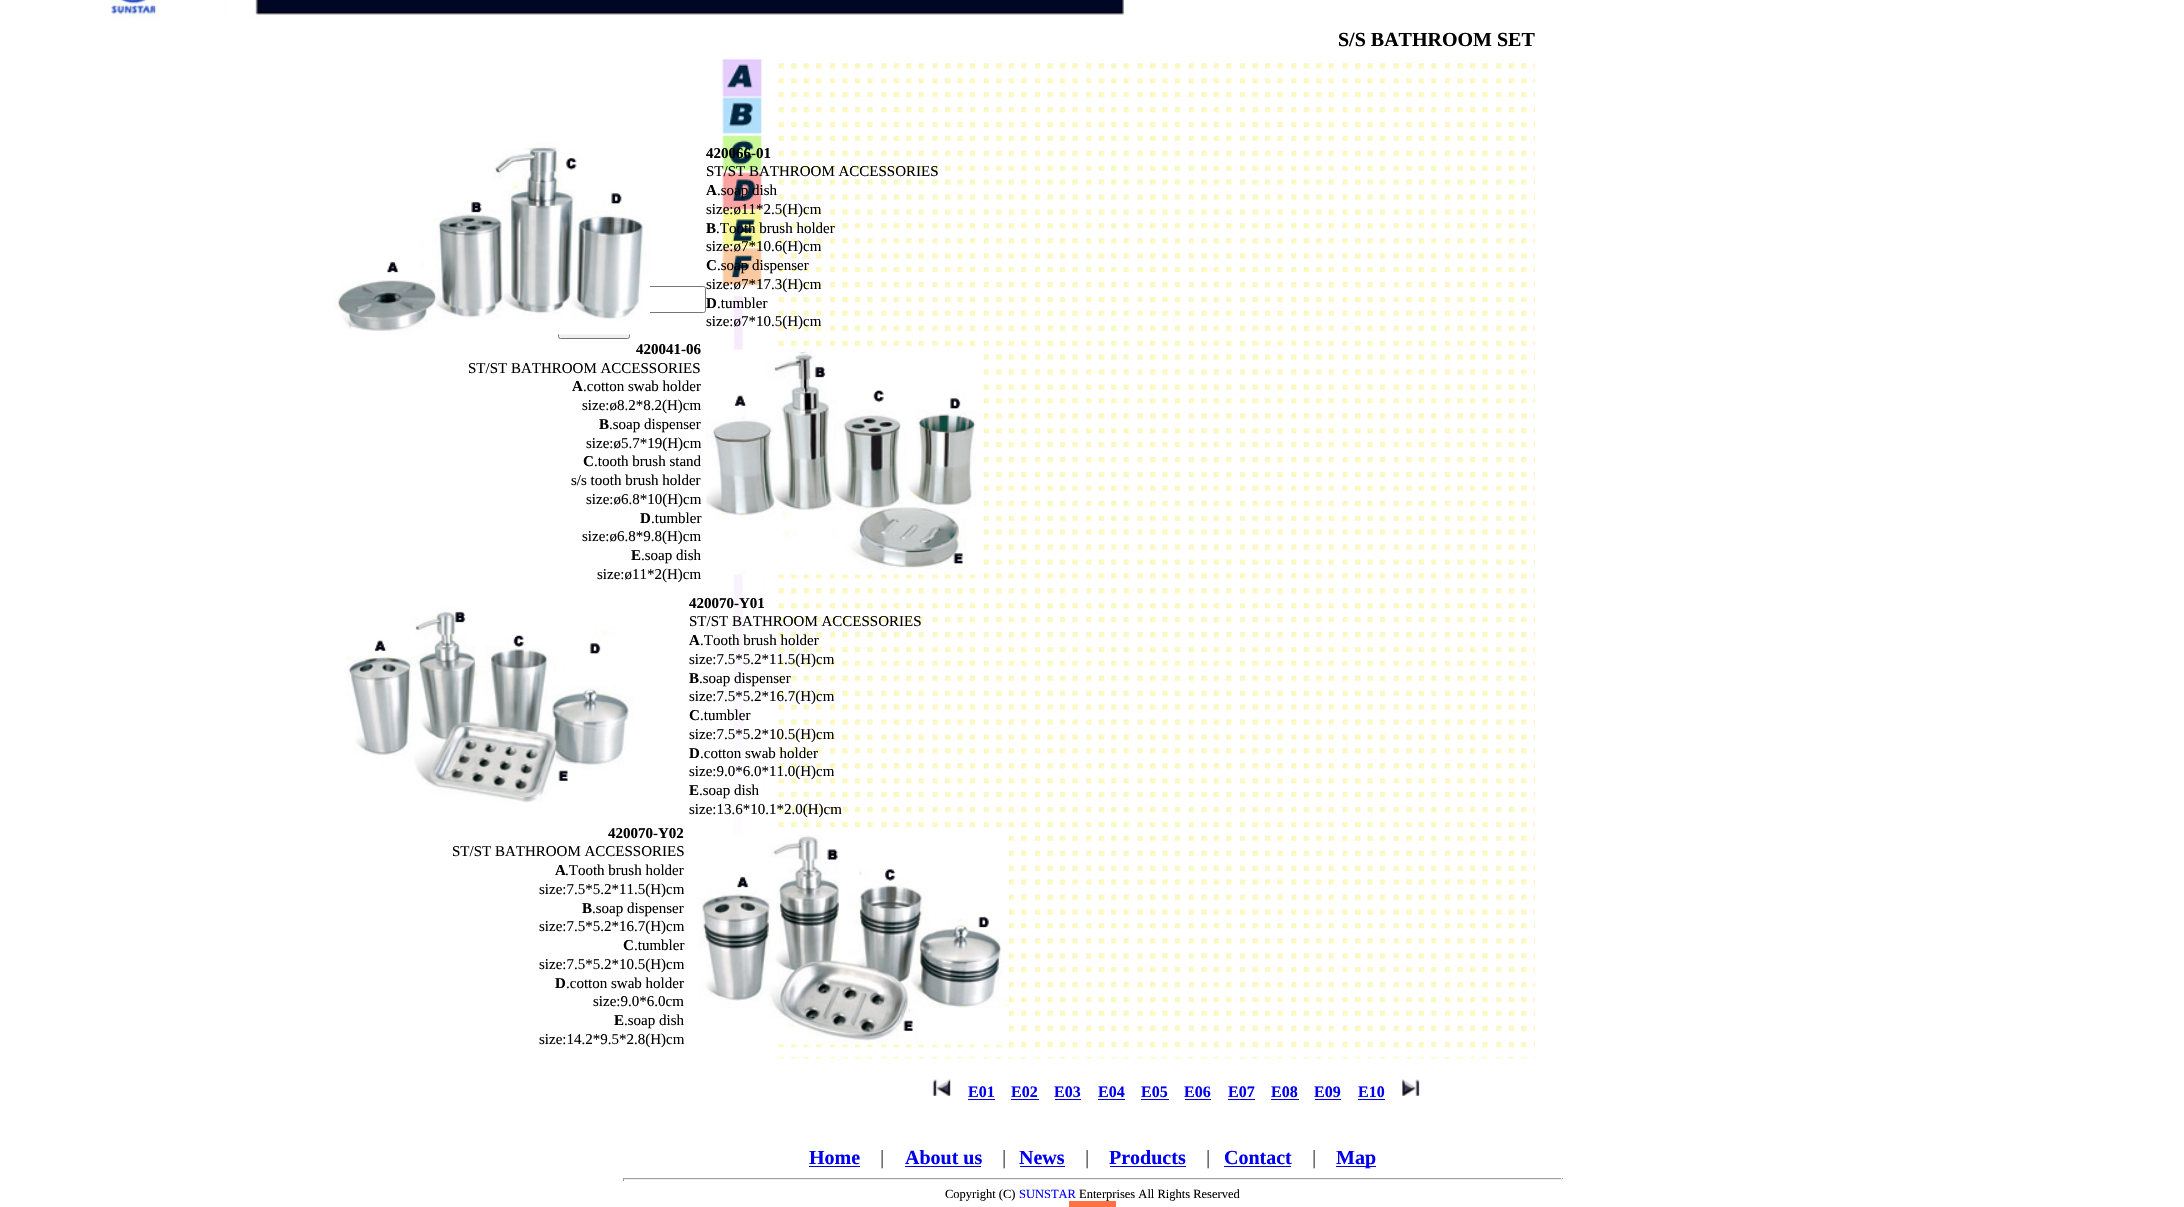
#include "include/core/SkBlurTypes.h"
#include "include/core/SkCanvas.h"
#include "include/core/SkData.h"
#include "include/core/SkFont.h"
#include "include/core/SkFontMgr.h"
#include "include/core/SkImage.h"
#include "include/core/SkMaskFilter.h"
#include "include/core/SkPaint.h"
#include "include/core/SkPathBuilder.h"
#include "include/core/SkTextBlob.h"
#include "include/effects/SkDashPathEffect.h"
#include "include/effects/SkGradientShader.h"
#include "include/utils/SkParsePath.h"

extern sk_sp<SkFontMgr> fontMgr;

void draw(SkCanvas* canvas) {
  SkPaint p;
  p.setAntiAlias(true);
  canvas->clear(SK_ColorWHITE);
  canvas->drawImageRect(SkImages::DeferredFromEncodedData(SkData::MakeFromFileName("images/1.png")), SkRect::MakeLTRB(110, 0, 1124, 20), SkSamplingOptions());
  p.setStyle(SkPaint::kStroke_Style);
  p.setStrokeWidth(1);
  p.setColor(SkColorSetRGB(118, 118, 118));
  canvas->drawRoundRect(SkRect::MakeLTRB(475.5f, 286.5f, 705.5f, 312.5f), 2, 2, p);
  p.setStyle(SkPaint::kFill_Style);
  p.setColor(SkColorSetRGB(239, 239, 239));
  canvas->drawRoundRect(SkRect::MakeLTRB(558.5f, 313.5f, 629.5f, 338.5f), 2, 2, p);
  p.setStyle(SkPaint::kStroke_Style);
  p.setColor(SkColorSetRGB(118, 118, 118));
  canvas->drawRoundRect(SkRect::MakeLTRB(558.5f, 313.5f, 629.5f, 338.5f), 2, 2, p);
  canvas->drawImageRect(SkImages::DeferredFromEncodedData(SkData::MakeFromFileName("images/2.png")), SkRect::MakeLTRB(333, 142, 650, 335), SkSamplingOptions());
  canvas->drawImageRect(SkImages::DeferredFromEncodedData(SkData::MakeFromFileName("images/9.png")), SkRect::MakeLTRB(722, 247, 762, 286), SkSamplingOptions());
  canvas->drawImageRect(SkImages::DeferredFromEncodedData(SkData::MakeFromFileName("images/10.png")), SkRect::MakeLTRB(723, 285, 766, 835), SkSamplingOptions());
  canvas->drawImageRect(SkImages::DeferredFromEncodedData(SkData::MakeFromFileName("images/11.png")), SkRect::MakeLTRB(778, 63, 1535, 1032), SkSamplingOptions());
  canvas->drawImageRect(SkImages::DeferredFromEncodedData(SkData::MakeFromFileName("images/3.png")), SkRect::MakeLTRB(706, 349, 976, 575), SkSamplingOptions());
  canvas->drawImageRect(SkImages::DeferredFromEncodedData(SkData::MakeFromFileName("images/4.png")), SkRect::MakeLTRB(720, 58, 765, 97), SkSamplingOptions());
  canvas->drawImageRect(SkImages::DeferredFromEncodedData(SkData::MakeFromFileName("images/5.png")), SkRect::MakeLTRB(720, 97, 764, 135), SkSamplingOptions());
  canvas->drawImageRect(SkImages::DeferredFromEncodedData(SkData::MakeFromFileName("images/6.png")), SkRect::MakeLTRB(719, 135, 765, 171), SkSamplingOptions());
  canvas->drawImageRect(SkImages::DeferredFromEncodedData(SkData::MakeFromFileName("images/7.png")), SkRect::MakeLTRB(722, 172, 764, 210), SkSamplingOptions());
  canvas->drawImageRect(SkImages::DeferredFromEncodedData(SkData::MakeFromFileName("images/8.png")), SkRect::MakeLTRB(715, 209, 763, 247), SkSamplingOptions());
  canvas->drawImageRect(SkImages::DeferredFromEncodedData(SkData::MakeFromFileName("images/12.png")), SkRect::MakeLTRB(778, 1041, 1535, 1059), SkSamplingOptions());
  canvas->drawImageRect(SkImages::DeferredFromEncodedData(SkData::MakeFromFileName("images/13.png")), SkRect::MakeLTRB(932, 1079, 951, 1097), SkSamplingOptions());
  p.setStyle(SkPaint::kFill_Style);
  p.setColor(SkColorSetRGB(0, 0, 238));
  canvas->drawRect(SkRect::MakeLTRB(968, 1099, 995, 1100), p);
  canvas->drawRect(SkRect::MakeLTRB(1011, 1099, 1039, 1100), p);
  canvas->drawRect(SkRect::MakeLTRB(1055, 1099, 1081, 1100), p);
  canvas->drawRect(SkRect::MakeLTRB(1098, 1099, 1125, 1100), p);
  canvas->drawRect(SkRect::MakeLTRB(1141, 1099, 1169, 1100), p);
  canvas->drawRect(SkRect::MakeLTRB(1185, 1099, 1211, 1100), p);
  canvas->drawRect(SkRect::MakeLTRB(1228, 1099, 1255, 1100), p);
  canvas->drawRect(SkRect::MakeLTRB(1271, 1099, 1299, 1100), p);
  canvas->drawRect(SkRect::MakeLTRB(1315, 1099, 1341, 1100), p);
  canvas->drawRect(SkRect::MakeLTRB(1358, 1099, 1385, 1100), p);
  canvas->drawImageRect(SkImages::DeferredFromEncodedData(SkData::MakeFromFileName("images/14.png")), SkRect::MakeLTRB(1402, 1079, 1420, 1096), SkSamplingOptions());
  canvas->drawImageRect(SkImages::DeferredFromEncodedData(SkData::MakeFromFileName("images/15.png")), SkRect::MakeLTRB(345, 607, 634, 803), SkSamplingOptions());
  canvas->drawImageRect(SkImages::DeferredFromEncodedData(SkData::MakeFromFileName("images/16.png")), SkRect::MakeLTRB(699, 835, 1009, 1045), SkSamplingOptions());
  canvas->drawRect(SkRect::MakeLTRB(809, 1166, 860, 1167), p);
  canvas->drawRect(SkRect::MakeLTRB(905, 1166, 981, 1167), p);
  canvas->drawRect(SkRect::MakeLTRB(1020, 1166, 1065, 1167), p);
  canvas->drawRect(SkRect::MakeLTRB(1110, 1166, 1186, 1167), p);
  canvas->drawRect(SkRect::MakeLTRB(1224, 1166, 1291, 1167), p);
  canvas->drawRect(SkRect::MakeLTRB(1336, 1166, 1376, 1167), p);
  p.setColor(SkColorSetRGB(159, 159, 159));
  canvas->drawRect(SkRect::MakeLTRB(623, 1178, 1563, 1179), p);
  p.setColor(SkColorSetRGB(238, 238, 238));
  canvas->drawRect(SkRect::MakeLTRB(1561, 1178, 1562, 1181), p);
  canvas->drawRect(SkRect::MakeLTRB(623, 1179, 1563, 1180), p);
  p.setColor(SkColorSetRGB(159, 159, 159));
  canvas->drawRect(SkRect::MakeLTRB(623, 1178, 624, 1181), p);
  p.setColor(SkColorSetRGB(255, 112, 67));
  canvas->drawRect(SkRect::MakeLTRB(1069, 1201, 1116, 1207), p);
  SkFont font1(fontMgr->matchFamilyStyle("Liberation Serif", SkFontStyle::Bold()), 15);
  font1.setSubpixel(true);
  p.setColor(SK_ColorBLACK);
  canvas->drawString("420066-01", 706, 158, font1, p);
  SkFont font2(fontMgr->matchFamilyStyle("Liberation Serif", SkFontStyle::Normal()), 15);
  font2.setSubpixel(true);
  canvas->drawString("ST/ST BATHROOM ACCESSORIES", 706, 176, font2, p);
  canvas->drawString("A", 706, 195, font1, p);
  canvas->drawString(".soap dish", 717, 195, font2, p);
  canvas->drawString("size:ø11*2.5(H)cm", 706, 214, font2, p);
  canvas->drawString("B", 706, 233, font1, p);
  canvas->drawString(".Tooth brush holder", 716, 233, font2, p);
  canvas->drawString("size:ø7*10.6(H)cm", 706, 251, font2, p);
  canvas->drawString("C", 706, 270, font1, p);
  canvas->drawString(".soap dispenser", 717, 270, font2, p);
  canvas->drawString("size:ø7*17.3(H)cm", 706, 289, font2, p);
  canvas->drawString("D", 706, 308, font1, p);
  canvas->drawString(".tumbler", 717, 308, font2, p);
  canvas->drawString("size:ø7*10.5(H)cm", 706, 326, font2, p);
  canvas->drawString("420041-06", 636, 354, font1, p);
  canvas->drawString("ST/ST BATHROOM ACCESSORIES", 468, 373, font2, p);
  canvas->drawString("A", 572, 391, font1, p);
  canvas->drawString(".cotton swab holder", 583, 391, font2, p);
  canvas->drawString("size:ø8.2*8.2(H)cm", 582, 410, font2, p);
  canvas->drawString("B", 599, 429, font1, p);
  canvas->drawString(".soap dispenser", 609, 429, font2, p);
  canvas->drawString("size:ø5.7*19(H)cm", 586, 448, font2, p);
  canvas->drawString("C", 583, 466, font1, p);
  canvas->drawString(".tooth brush stand", 594, 466, font2, p);
  canvas->drawString("s/s tooth brush holder", 571, 485, font2, p);
  canvas->drawString("size:ø6.8*10(H)cm", 586, 504, font2, p);
  canvas->drawString("D", 640, 523, font1, p);
  canvas->drawString(".tumbler", 651, 523, font2, p);
  canvas->drawString("size:ø6.8*9.8(H)cm", 582, 541, font2, p);
  canvas->drawString("E", 631, 560, font1, p);
  canvas->drawString(".soap dish", 641, 560, font2, p);
  canvas->drawString("size:ø11*2(H)cm", 597, 579, font2, p);
  SkFont font3(fontMgr->matchFamilyStyle("Liberation Serif", SkFontStyle::Bold()), 20);
  font3.setSubpixel(true);
  canvas->drawString("S/S BATHROOM SET", 1338, 46, font3, p);
  SkFont font4(fontMgr->matchFamilyStyle("Liberation Serif", SkFontStyle::Bold()), 16);
  font4.setSubpixel(true);
  p.setColor(SkColorSetRGB(0, 0, 238));
  canvas->drawString("E01", 968, 1097, font4, p);
  canvas->drawString("E02", 1011, 1097, font4, p);
  canvas->drawString("E03", 1054, 1097, font4, p);
  canvas->drawString("E04", 1098, 1097, font4, p);
  canvas->drawString("E05", 1141, 1097, font4, p);
  canvas->drawString("E06", 1184, 1097, font4, p);
  canvas->drawString("E07", 1228, 1097, font4, p);
  canvas->drawString("E08", 1271, 1097, font4, p);
  canvas->drawString("E09", 1314, 1097, font4, p);
  canvas->drawString("E10", 1358, 1097, font4, p);
  p.setColor(SK_ColorBLACK);
  canvas->drawString("420070-Y01", 689, 608, font1, p);
  canvas->drawString("ST/ST BATHROOM ACCESSORIES", 689, 626, font2, p);
  canvas->drawString("A", 689, 645, font1, p);
  canvas->drawString(".Tooth brush holder", 700, 645, font2, p);
  canvas->drawString("size:7.5*5.2*11.5(H)cm", 689, 664, font2, p);
  canvas->drawString("B", 689, 683, font1, p);
  canvas->drawString(".soap dispenser", 699, 683, font2, p);
  canvas->drawString("size:7.5*5.2*16.7(H)cm", 689, 701, font2, p);
  canvas->drawString("C", 689, 720, font1, p);
  canvas->drawString(".tumbler", 700, 720, font2, p);
  canvas->drawString("size:7.5*5.2*10.5(H)cm", 689, 739, font2, p);
  canvas->drawString("D", 689, 758, font1, p);
  canvas->drawString(".cotton swab holder", 700, 758, font2, p);
  canvas->drawString("size:9.0*6.0*11.0(H)cm", 689, 776, font2, p);
  canvas->drawString("E", 689, 795, font1, p);
  canvas->drawString(".soap dish", 699, 795, font2, p);
  canvas->drawString("size:13.6*10.1*2.0(H)cm", 689, 814, font2, p);
  canvas->drawString("420070-Y02", 608, 838, font1, p);
  canvas->drawString("ST/ST BATHROOM ACCESSORIES", 452, 856, font2, p);
  canvas->drawString("A", 555, 875, font1, p);
  canvas->drawString(".Tooth brush holder", 565, 875, font2, p);
  canvas->drawString("size:7.5*5.2*11.5(H)cm", 539, 894, font2, p);
  canvas->drawString("B", 582, 913, font1, p);
  canvas->drawString(".soap dispenser", 592, 913, font2, p);
  canvas->drawString("size:7.5*5.2*16.7(H)cm", 539, 931, font2, p);
  canvas->drawString("C", 623, 950, font1, p);
  canvas->drawString(".tumbler", 634, 950, font2, p);
  canvas->drawString("size:7.5*5.2*10.5(H)cm", 539, 969, font2, p);
  canvas->drawString("D", 555, 988, font1, p);
  canvas->drawString(".cotton swab holder", 566, 988, font2, p);
  canvas->drawString("size:9.0*6.0cm", 593, 1006, font2, p);
  canvas->drawString("E", 614, 1025, font1, p);
  canvas->drawString(".soap dish", 624, 1025, font2, p);
  canvas->drawString("size:14.2*9.5*2.8(H)cm", 539, 1044, font2, p);
  p.setColor(SkColorSetRGB(0, 0, 238));
  canvas->drawString("Home", 809, 1164, font3, p);
  p.setColor(SkColorSetRGB(102, 102, 102));
  canvas->drawString("|", 880, 1164, font3, p);
  p.setColor(SkColorSetRGB(0, 0, 238));
  canvas->drawString("About us", 905, 1164, font3, p);
  p.setColor(SkColorSetRGB(102, 102, 102));
  canvas->drawString("|", 1002, 1164, font3, p);
  p.setColor(SkColorSetRGB(0, 0, 238));
  canvas->drawString("News", 1019, 1164, font3, p);
  p.setColor(SkColorSetRGB(102, 102, 102));
  canvas->drawString("|", 1085, 1164, font3, p);
  p.setColor(SkColorSetRGB(0, 0, 238));
  canvas->drawString("Products", 1109, 1164, font3, p);
  p.setColor(SkColorSetRGB(102, 102, 102));
  canvas->drawString("|", 1206, 1164, font3, p);
  p.setColor(SkColorSetRGB(0, 0, 238));
  canvas->drawString("Contact", 1224, 1164, font3, p);
  p.setColor(SkColorSetRGB(102, 102, 102));
  canvas->drawString("|", 1312, 1164, font3, p);
  p.setColor(SkColorSetRGB(0, 0, 238));
  canvas->drawString("Map", 1336, 1164, font3, p);
  SkFont font5(fontMgr->matchFamilyStyle("Liberation Serif", SkFontStyle::Normal()), 12.5f);
  font5.setSubpixel(true);
  p.setColor(SK_ColorBLACK);
  canvas->drawString("Copyright (C)", 945, 1198, font5, p);
  p.setColor(SkColorSetRGB(0, 0, 255));
  canvas->drawString("SUNSTAR", 1019, 1198, font5, p);
  p.setColor(SK_ColorBLACK);
  canvas->drawString("Enterprises All Rights Reserved", 1079, 1198, font5, p);
}
